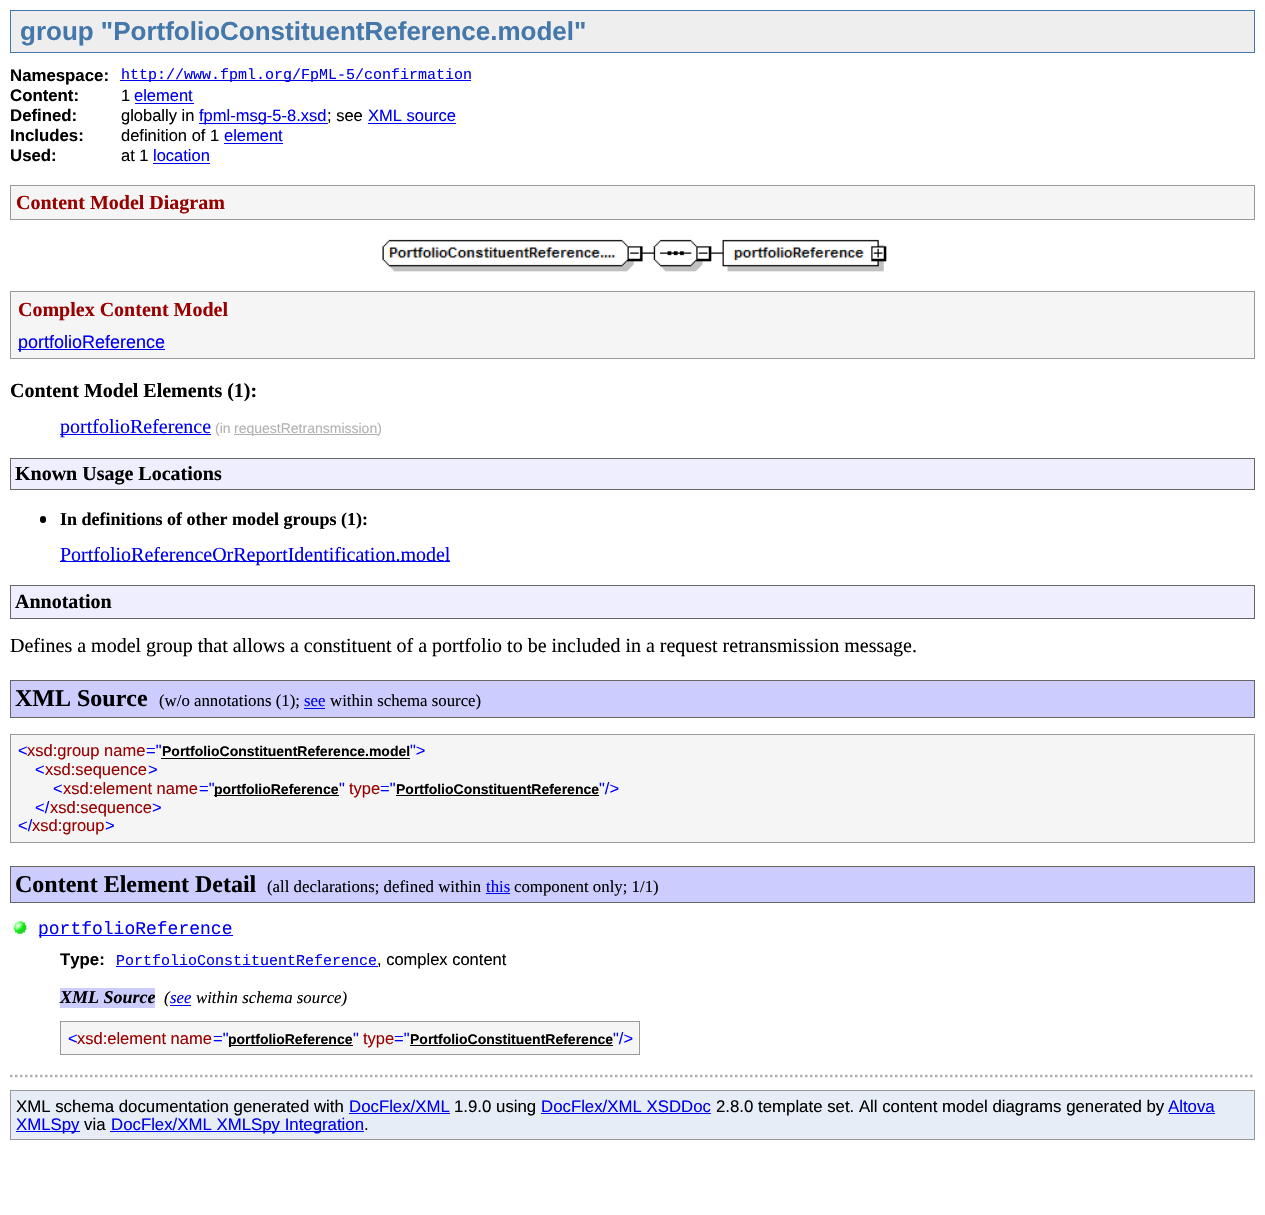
#include "include/core/SkBlurTypes.h"
#include "include/core/SkCanvas.h"
#include "include/core/SkData.h"
#include "include/core/SkFont.h"
#include "include/core/SkFontMgr.h"
#include "include/core/SkImage.h"
#include "include/core/SkMaskFilter.h"
#include "include/core/SkPaint.h"
#include "include/core/SkPathBuilder.h"
#include "include/core/SkTextBlob.h"
#include "include/effects/SkDashPathEffect.h"
#include "include/effects/SkGradientShader.h"
#include "include/utils/SkParsePath.h"

extern sk_sp<SkFontMgr> fontMgr;

void draw(SkCanvas* canvas) {
  SkPaint p;
  p.setAntiAlias(true);
  canvas->clear(SK_ColorWHITE);
  p.setColor(SkColorSetRGB(238, 238, 238));
  canvas->drawRect(SkRect::MakeLTRB(10.5f, 10.5f, 1254.5f, 52.5f), p);
  p.setStyle(SkPaint::kStroke_Style);
  p.setStrokeWidth(1);
  p.setColor(SkColorSetRGB(68, 119, 170));
  canvas->drawRect(SkRect::MakeLTRB(10.5f, 10.5f, 1254.5f, 52.5f), p);
  p.setStyle(SkPaint::kFill_Style);
  p.setColor(SkColorSetRGB(0, 0, 238));
  canvas->drawRect(SkRect::MakeLTRB(120, 80, 471, 81), p);
  canvas->drawRect(SkRect::MakeLTRB(135, 103, 194, 104), p);
  canvas->drawRect(SkRect::MakeLTRB(199, 123, 328, 124), p);
  canvas->drawRect(SkRect::MakeLTRB(368, 123, 456, 124), p);
  canvas->drawRect(SkRect::MakeLTRB(224, 143, 283, 144), p);
  canvas->drawRect(SkRect::MakeLTRB(153, 163, 210, 164), p);
  p.setColor(SkColorSetRGB(245, 245, 245));
  canvas->drawRect(SkRect::MakeLTRB(10.5f, 185.5f, 1254.5f, 219.5f), p);
  p.setStyle(SkPaint::kStroke_Style);
  p.setColor(SkColorSetRGB(153, 153, 153));
  canvas->drawRect(SkRect::MakeLTRB(10.5f, 185.5f, 1254.5f, 219.5f), p);
  canvas->drawImageRect(SkImages::DeferredFromEncodedData(SkData::MakeFromFileName("images/1.png")), SkRect::MakeLTRB(382, 239, 887, 272), SkSamplingOptions());
  p.setStyle(SkPaint::kFill_Style);
  p.setColor(SkColorSetRGB(245, 245, 245));
  canvas->drawRect(SkRect::MakeLTRB(10.5f, 291.5f, 1254.5f, 358.5f), p);
  p.setStyle(SkPaint::kStroke_Style);
  p.setColor(SkColorSetRGB(153, 153, 153));
  canvas->drawRect(SkRect::MakeLTRB(10.5f, 291.5f, 1254.5f, 358.5f), p);
  p.setStyle(SkPaint::kFill_Style);
  p.setColor(SkColorSetRGB(0, 0, 238));
  canvas->drawRect(SkRect::MakeLTRB(18, 349, 165, 350), p);
  canvas->drawRect(SkRect::MakeLTRB(60, 434, 211, 435), p);
  p.setColor(SkColorSetRGB(178, 178, 178));
  canvas->drawRect(SkRect::MakeLTRB(234, 434, 378, 435), p);
  p.setColor(SkColorSetRGB(238, 238, 255));
  canvas->drawRect(SkRect::MakeLTRB(10.5f, 458.5f, 1254.5f, 489.5f), p);
  p.setStyle(SkPaint::kStroke_Style);
  p.setColor(SkColorSetRGB(102, 102, 102));
  canvas->drawRect(SkRect::MakeLTRB(10.5f, 458.5f, 1254.5f, 489.5f), p);
  p.setStyle(SkPaint::kFill_Style);
  p.setColor(SK_ColorBLACK);
  canvas->drawRoundRect(SkRect::MakeLTRB(40, 516, 46, 523), 3, 3, p);
  p.setColor(SkColorSetRGB(0, 0, 238));
  canvas->drawRect(SkRect::MakeLTRB(60, 561, 450, 562), p);
  p.setColor(SkColorSetRGB(238, 238, 255));
  canvas->drawRect(SkRect::MakeLTRB(10.5f, 585.5f, 1254.5f, 618.5f), p);
  p.setStyle(SkPaint::kStroke_Style);
  p.setColor(SkColorSetRGB(102, 102, 102));
  canvas->drawRect(SkRect::MakeLTRB(10.5f, 585.5f, 1254.5f, 618.5f), p);
  p.setStyle(SkPaint::kFill_Style);
  p.setColor(SkColorSetRGB(204, 204, 255));
  canvas->drawRect(SkRect::MakeLTRB(10.5f, 680.5f, 1254.5f, 717.5f), p);
  p.setStyle(SkPaint::kStroke_Style);
  p.setColor(SkColorSetRGB(102, 102, 102));
  canvas->drawRect(SkRect::MakeLTRB(10.5f, 680.5f, 1254.5f, 717.5f), p);
  p.setStyle(SkPaint::kFill_Style);
  p.setColor(SkColorSetRGB(0, 0, 238));
  canvas->drawRect(SkRect::MakeLTRB(304, 708, 325, 709), p);
  p.setColor(SkColorSetRGB(245, 245, 245));
  canvas->drawRect(SkRect::MakeLTRB(10.5f, 734.5f, 1254.5f, 842.5f), p);
  p.setStyle(SkPaint::kStroke_Style);
  p.setColor(SkColorSetRGB(153, 153, 153));
  canvas->drawRect(SkRect::MakeLTRB(10.5f, 734.5f, 1254.5f, 842.5f), p);
  p.setStyle(SkPaint::kFill_Style);
  p.setColor(SK_ColorBLACK);
  canvas->drawRect(SkRect::MakeLTRB(161, 758, 410, 759), p);
  canvas->drawRect(SkRect::MakeLTRB(214, 795, 339, 796), p);
  canvas->drawRect(SkRect::MakeLTRB(396, 795, 599, 796), p);
  p.setColor(SkColorSetRGB(204, 204, 255));
  canvas->drawRect(SkRect::MakeLTRB(10.5f, 866.5f, 1254.5f, 902.5f), p);
  p.setStyle(SkPaint::kStroke_Style);
  p.setColor(SkColorSetRGB(102, 102, 102));
  canvas->drawRect(SkRect::MakeLTRB(10.5f, 866.5f, 1254.5f, 902.5f), p);
  p.setStyle(SkPaint::kFill_Style);
  p.setColor(SkColorSetRGB(0, 0, 238));
  canvas->drawRect(SkRect::MakeLTRB(486, 893, 510, 894), p);
  canvas->drawImageRect(SkImages::DeferredFromEncodedData(SkData::MakeFromFileName("images/2.png")), SkRect::MakeLTRB(13, 921, 27, 934), SkSamplingOptions());
  canvas->drawRect(SkRect::MakeLTRB(39, 935, 233, 936), p);
  canvas->drawRect(SkRect::MakeLTRB(116, 966, 378, 967), p);
  p.setColor(SkColorSetRGB(204, 204, 255));
  canvas->drawRect(SkRect::MakeLTRB(60, 988, 155, 1008), p);
  p.setColor(SkColorSetRGB(245, 245, 245));
  canvas->drawRect(SkRect::MakeLTRB(60.5f, 1021.5f, 639.5f, 1054.5f), p);
  p.setStyle(SkPaint::kStroke_Style);
  p.setColor(SkColorSetRGB(153, 153, 153));
  canvas->drawRect(SkRect::MakeLTRB(60.5f, 1021.5f, 639.5f, 1054.5f), p);
  p.setStyle(SkPaint::kFill_Style);
  p.setColor(SK_ColorBLACK);
  canvas->drawRect(SkRect::MakeLTRB(229, 1045, 353, 1046), p);
  canvas->drawRect(SkRect::MakeLTRB(410, 1045, 613, 1046), p);
  p.setStyle(SkPaint::kStroke_Style);
  p.setStrokeWidth(2.5f);
  p.setColor(SkColorSetRGB(178, 178, 178));
  p.setPathEffect(SkDashPathEffect::Make({{2.5f, 2.5f}}, 0));
  canvas->drawPath(SkPathBuilder().moveTo(10, 1076).lineTo(1255, 1076).detach(), p);
  p.setPathEffect(nullptr);
  p.setStyle(SkPaint::kFill_Style);
  p.setColor(SkColorSetRGB(231, 237, 246));
  canvas->drawRect(SkRect::MakeLTRB(10.5f, 1090.5f, 1254.5f, 1139.5f), p);
  p.setStyle(SkPaint::kStroke_Style);
  p.setStrokeWidth(1);
  p.setColor(SkColorSetRGB(153, 153, 153));
  canvas->drawRect(SkRect::MakeLTRB(10.5f, 1090.5f, 1254.5f, 1139.5f), p);
  p.setStyle(SkPaint::kFill_Style);
  p.setColor(SkColorSetRGB(0, 0, 238));
  canvas->drawRect(SkRect::MakeLTRB(349, 1113, 450, 1114), p);
  canvas->drawRect(SkRect::MakeLTRB(541, 1113, 711, 1114), p);
  canvas->drawRect(SkRect::MakeLTRB(1169, 1113, 1215, 1114), p);
  canvas->drawRect(SkRect::MakeLTRB(16, 1131, 80, 1132), p);
  canvas->drawRect(SkRect::MakeLTRB(110, 1131, 364, 1132), p);
  SkFont font1(fontMgr->matchFamilyStyle("Liberation Sans", SkFontStyle::Bold()), 26);
  font1.setSubpixel(true);
  p.setColor(SkColorSetRGB(68, 119, 170));
  canvas->drawString("group \"PortfolioConstituentReference.model\"", 20, 40, font1, p);
  SkFont font2(fontMgr->matchFamilyStyle("Liberation Sans", SkFontStyle::Bold()), 16.8f);
  font2.setSubpixel(true);
  p.setColor(SK_ColorBLACK);
  canvas->drawString("Namespace:", 10, 81, font2, p);
  SkFont font3(fontMgr->matchFamilyStyle("Liberation Mono", SkFontStyle::Normal()), 15);
  font3.setSubpixel(true);
  p.setColor(SkColorSetRGB(0, 0, 238));
  canvas->drawString("http://www.fpml.org/FpML-5/confirmation", 121, 79, font3, p);
  p.setColor(SK_ColorBLACK);
  canvas->drawString("Content:", 10, 101, font2, p);
  SkFont font4(fontMgr->matchFamilyStyle("Liberation Sans", SkFontStyle::Normal()), 16.5f);
  font4.setSubpixel(true);
  canvas->drawString("1", 121, 101, font4, p);
  p.setColor(SkColorSetRGB(0, 0, 238));
  canvas->drawString("element", 134, 101, font4, p);
  p.setColor(SK_ColorBLACK);
  canvas->drawString("Defined:", 10, 121, font2, p);
  canvas->drawString("globally in", 121, 121, font4, p);
  p.setColor(SkColorSetRGB(0, 0, 238));
  canvas->drawString("fpml-msg-5-8.xsd", 199, 121, font4, p);
  p.setColor(SK_ColorBLACK);
  canvas->drawString("; see", 327, 121, font4, p);
  p.setColor(SkColorSetRGB(0, 0, 238));
  canvas->drawString("XML source", 368, 121, font4, p);
  p.setColor(SK_ColorBLACK);
  canvas->drawString("Includes:", 10, 141, font2, p);
  canvas->drawString("definition of 1", 121, 141, font4, p);
  p.setColor(SkColorSetRGB(0, 0, 238));
  canvas->drawString("element", 224, 141, font4, p);
  p.setColor(SK_ColorBLACK);
  canvas->drawString("Used:", 10, 161, font2, p);
  canvas->drawString("at 1", 121, 161, font4, p);
  p.setColor(SkColorSetRGB(0, 0, 238));
  canvas->drawString("location", 153, 161, font4, p);
  SkFont font5(fontMgr->matchFamilyStyle("Liberation Serif", SkFontStyle::Bold()), 20);
  font5.setSubpixel(true);
  p.setColor(SkColorSetRGB(153, 0, 0));
  canvas->drawString("Content Model Diagram", 16, 209, font5, p);
  canvas->drawString("Complex Content Model", 18, 316, font5, p);
  SkFont font6(fontMgr->matchFamilyStyle("Liberation Sans", SkFontStyle::Normal()), 18);
  font6.setSubpixel(true);
  p.setColor(SkColorSetRGB(0, 0, 238));
  canvas->drawString("portfolioReference", 18, 348, font6, p);
  p.setColor(SK_ColorBLACK);
  canvas->drawString("Content Model Elements (1):", 10, 397, font5, p);
  SkFont font7(fontMgr->matchFamilyStyle("Liberation Serif", SkFontStyle::Normal()), 20);
  font7.setSubpixel(true);
  p.setColor(SkColorSetRGB(0, 0, 238));
  canvas->drawString("portfolioReference", 60, 433, font7, p);
  SkFont font8(fontMgr->matchFamilyStyle("Liberation Sans", SkFontStyle::Normal()), 14);
  font8.setSubpixel(true);
  p.setColor(SkColorSetRGB(178, 178, 178));
  canvas->drawString("(in", 215, 433, font8, p);
  canvas->drawString("requestRetransmission)", 234, 433, font8, p);
  p.setColor(SK_ColorBLACK);
  canvas->drawString("Known Usage Locations", 15, 480, font5, p);
  SkFont font9(fontMgr->matchFamilyStyle("Liberation Serif", SkFontStyle::Bold()), 18);
  font9.setSubpixel(true);
  canvas->drawString("In definitions of other model groups (1):", 60, 525, font9, p);
  p.setColor(SkColorSetRGB(0, 0, 238));
  canvas->drawString("PortfolioReferenceOrReportIdentification.model", 60, 561, font7, p);
  p.setColor(SK_ColorBLACK);
  canvas->drawString("Annotation", 15, 608, font5, p);
  canvas->drawString("Defines a model group that allows a constituent of a portfolio to be included in a request retransmission message.", 10, 652, font7, p);
  SkFont font10(fontMgr->matchFamilyStyle("Liberation Serif", SkFontStyle::Bold()), 24);
  font10.setSubpixel(true);
  canvas->drawString("XML Source", 15, 706, font10, p);
  SkFont font11(fontMgr->matchFamilyStyle("Liberation Serif", SkFontStyle::Normal()), 16.8f);
  font11.setSubpixel(true);
  canvas->drawString("(w/o annotations (1);", 159, 706, font11, p);
  p.setColor(SkColorSetRGB(0, 0, 238));
  canvas->drawString("see", 304, 706, font11, p);
  p.setColor(SK_ColorBLACK);
  canvas->drawString("within schema source)", 330, 706, font11, p);
  p.setColor(SkColorSetRGB(0, 0, 255));
  canvas->drawString("<", 18, 756, font4, p);
  p.setColor(SkColorSetRGB(153, 0, 0));
  canvas->drawString("xsd:group name", 27, 756, font4, p);
  p.setColor(SkColorSetRGB(0, 0, 255));
  canvas->drawString("=\"", 146, 756, font4, p);
  SkFont font12(fontMgr->matchFamilyStyle("Liberation Sans", SkFontStyle::Bold()), 14);
  font12.setSubpixel(true);
  p.setColor(SK_ColorBLACK);
  canvas->drawString("PortfolioConstituentReference.model", 162, 756, font12, p);
  p.setColor(SkColorSetRGB(0, 0, 255));
  canvas->drawString("\">", 410, 756, font4, p);
  canvas->drawString("<", 35, 775, font4, p);
  p.setColor(SkColorSetRGB(153, 0, 0));
  canvas->drawString("xsd:sequence", 45, 775, font4, p);
  p.setColor(SkColorSetRGB(0, 0, 255));
  canvas->drawString(">", 148, 775, font4, p);
  canvas->drawString("<", 53, 794, font4, p);
  p.setColor(SkColorSetRGB(153, 0, 0));
  canvas->drawString("xsd:element name", 63, 794, font4, p);
  p.setColor(SkColorSetRGB(0, 0, 255));
  canvas->drawString("=\"", 199, 794, font4, p);
  p.setColor(SK_ColorBLACK);
  canvas->drawString("portfolioReference", 214, 794, font12, p);
  p.setColor(SkColorSetRGB(0, 0, 255));
  canvas->drawString("\"", 339, 794, font4, p);
  p.setColor(SkColorSetRGB(153, 0, 0));
  canvas->drawString("type", 349, 794, font4, p);
  p.setColor(SkColorSetRGB(0, 0, 255));
  canvas->drawString("=\"", 380, 794, font4, p);
  p.setColor(SK_ColorBLACK);
  canvas->drawString("PortfolioConstituentReference", 396, 794, font12, p);
  p.setColor(SkColorSetRGB(0, 0, 255));
  canvas->drawString("\"/>", 599, 794, font4, p);
  canvas->drawString("</", 35, 813, font4, p);
  p.setColor(SkColorSetRGB(153, 0, 0));
  canvas->drawString("xsd:sequence", 50, 813, font4, p);
  p.setColor(SkColorSetRGB(0, 0, 255));
  canvas->drawString(">", 152, 813, font4, p);
  canvas->drawString("</", 18, 831, font4, p);
  p.setColor(SkColorSetRGB(153, 0, 0));
  canvas->drawString("xsd:group", 32, 831, font4, p);
  p.setColor(SkColorSetRGB(0, 0, 255));
  canvas->drawString(">", 105, 831, font4, p);
  p.setColor(SK_ColorBLACK);
  canvas->drawString("Content Element Detail", 15, 892, font10, p);
  canvas->drawString("(all declarations; defined within", 267, 892, font11, p);
  p.setColor(SkColorSetRGB(0, 0, 238));
  canvas->drawString("this", 486, 892, font11, p);
  p.setColor(SK_ColorBLACK);
  canvas->drawString("component only; 1/1)", 514, 892, font11, p);
  SkFont font13(fontMgr->matchFamilyStyle("Liberation Mono", SkFontStyle::Normal()), 18);
  font13.setSubpixel(true);
  p.setColor(SkColorSetRGB(0, 0, 238));
  canvas->drawString("portfolioReference", 38, 934, font13, p);
  p.setColor(SK_ColorBLACK);
  canvas->drawString("Type:", 60, 965, font2, p);
  p.setColor(SkColorSetRGB(0, 0, 238));
  canvas->drawString("PortfolioConstituentReference", 116, 965, font3, p);
  p.setColor(SK_ColorBLACK);
  canvas->drawString(", complex content", 377, 965, font4, p);
  SkFont font14(fontMgr->matchFamilyStyle("Liberation Serif", SkFontStyle::BoldItalic()), 18);
  font14.setSubpixel(true);
  canvas->drawString("XML Source", 60, 1003, font14, p);
  SkFont font15(fontMgr->matchFamilyStyle("Liberation Serif", SkFontStyle::Italic()), 16.8f);
  font15.setSubpixel(true);
  canvas->drawString("(", 164, 1003, font15, p);
  p.setColor(SkColorSetRGB(0, 0, 238));
  canvas->drawString("see", 170, 1003, font15, p);
  canvas->drawRect(SkRect::MakeLTRB(170, 1005, 191, 1006), p);
  p.setColor(SK_ColorBLACK);
  canvas->drawString("within schema source)", 196, 1003, font15, p);
  p.setColor(SkColorSetRGB(0, 0, 255));
  canvas->drawString("<", 68, 1044, font4, p);
  p.setColor(SkColorSetRGB(153, 0, 0));
  canvas->drawString("xsd:element name", 77, 1044, font4, p);
  p.setColor(SkColorSetRGB(0, 0, 255));
  canvas->drawString("=\"", 213, 1044, font4, p);
  p.setColor(SK_ColorBLACK);
  canvas->drawString("portfolioReference", 228, 1044, font12, p);
  p.setColor(SkColorSetRGB(0, 0, 255));
  canvas->drawString("\"", 353, 1044, font4, p);
  p.setColor(SkColorSetRGB(153, 0, 0));
  canvas->drawString("type", 363, 1044, font4, p);
  p.setColor(SkColorSetRGB(0, 0, 255));
  canvas->drawString("=\"", 394, 1044, font4, p);
  p.setColor(SK_ColorBLACK);
  canvas->drawString("PortfolioConstituentReference", 410, 1044, font12, p);
  p.setColor(SkColorSetRGB(0, 0, 255));
  canvas->drawString("\"/>", 613, 1044, font4, p);
  SkFont font16(fontMgr->matchFamilyStyle("Liberation Sans", SkFontStyle::Normal()), 16.8f);
  font16.setSubpixel(true);
  p.setColor(SK_ColorBLACK);
  canvas->drawString("XML schema documentation generated with", 16, 1112, font16, p);
  p.setColor(SkColorSetRGB(0, 0, 238));
  canvas->drawString("DocFlex/XML", 349, 1112, font16, p);
  p.setColor(SK_ColorBLACK);
  canvas->drawString("1.9.0 using", 454, 1112, font16, p);
  p.setColor(SkColorSetRGB(0, 0, 238));
  canvas->drawString("DocFlex/XML XSDDoc", 541, 1112, font16, p);
  p.setColor(SK_ColorBLACK);
  canvas->drawString("2.8.0 template set. All content model diagrams generated by", 716, 1112, font16, p);
  p.setColor(SkColorSetRGB(0, 0, 238));
  canvas->drawString("Altova", 1168, 1112, font16, p);
  canvas->drawString("XMLSpy", 16, 1130, font16, p);
  p.setColor(SK_ColorBLACK);
  canvas->drawString("via", 84, 1130, font16, p);
  p.setColor(SkColorSetRGB(0, 0, 238));
  canvas->drawString("DocFlex/XML XMLSpy Integration", 111, 1130, font16, p);
  p.setColor(SK_ColorBLACK);
  canvas->drawString(".", 364, 1130, font16, p);
}
